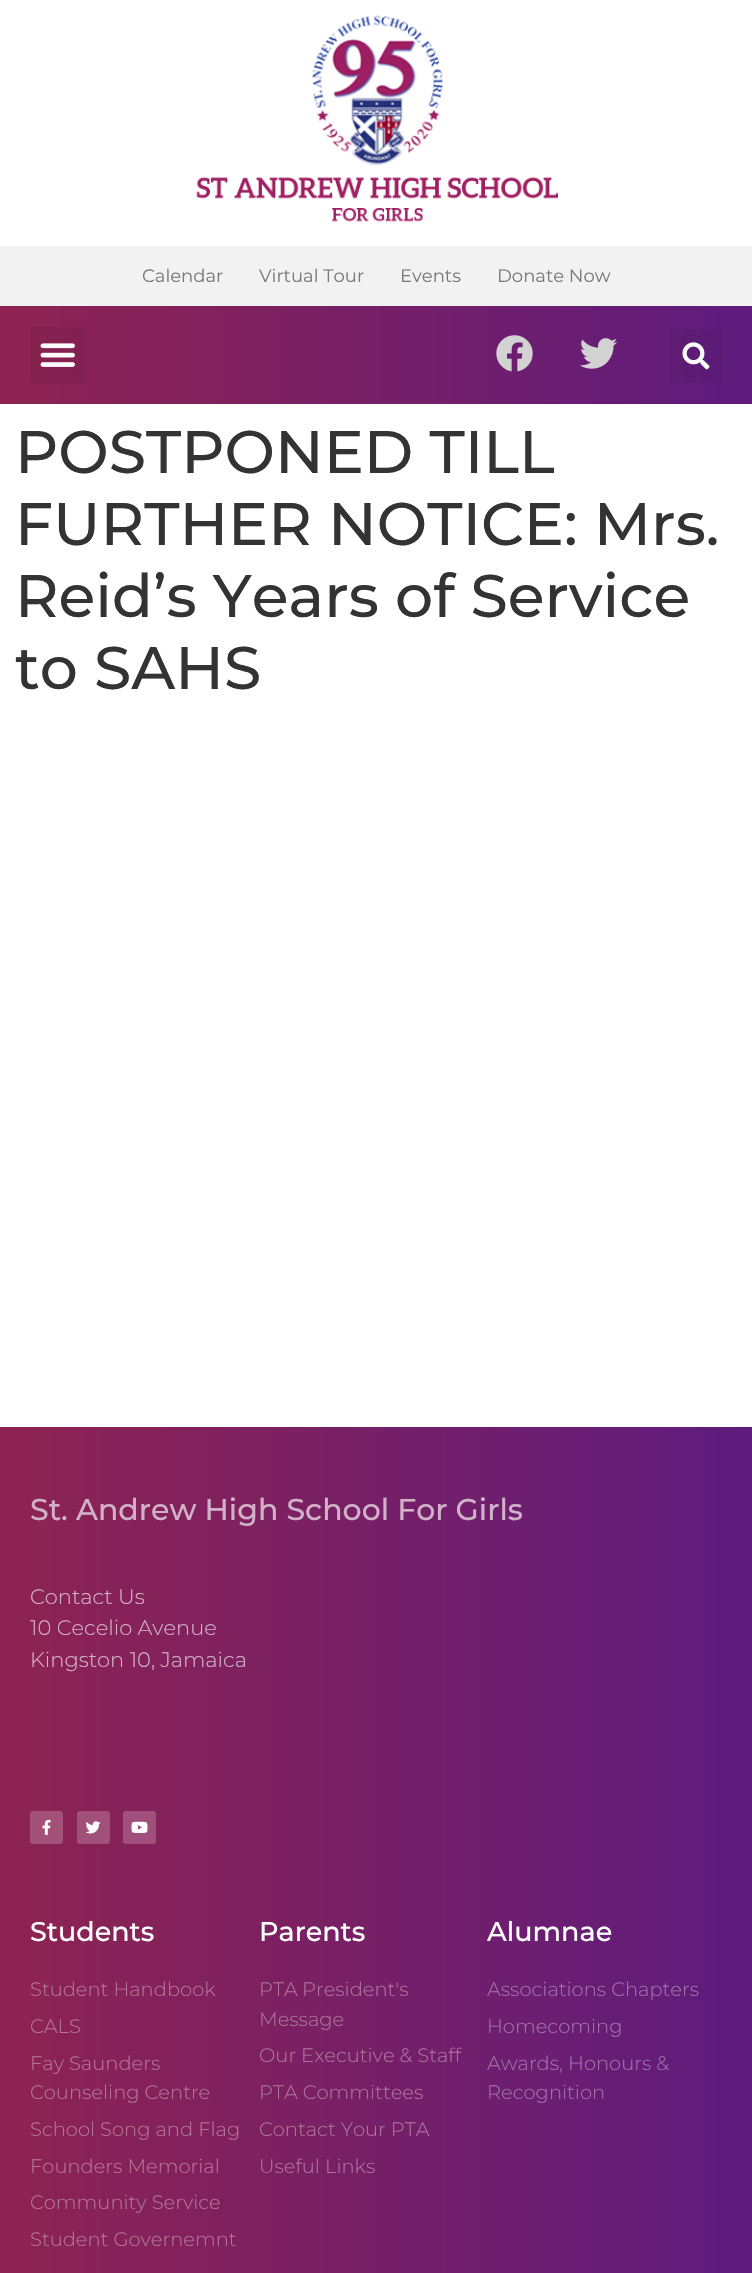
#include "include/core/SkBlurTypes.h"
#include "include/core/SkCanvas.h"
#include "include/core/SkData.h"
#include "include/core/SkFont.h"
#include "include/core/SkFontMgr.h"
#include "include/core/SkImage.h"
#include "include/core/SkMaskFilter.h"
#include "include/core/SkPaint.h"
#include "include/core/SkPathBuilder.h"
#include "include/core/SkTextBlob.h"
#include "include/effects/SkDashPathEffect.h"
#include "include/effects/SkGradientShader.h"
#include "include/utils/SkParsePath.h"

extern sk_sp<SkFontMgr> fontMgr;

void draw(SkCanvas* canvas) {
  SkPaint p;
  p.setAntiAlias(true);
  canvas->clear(SK_ColorWHITE);
  canvas->drawImageRect(SkImages::DeferredFromEncodedData(SkData::MakeFromFileName("images/1.png")), SkRect::MakeLTRB(196, 15, 558, 222), SkSamplingOptions());
  p.setColor(SkColorSetRGB(242, 242, 242));
  canvas->drawRect(SkRect::MakeLTRB(0, 246, 752, 306), p);
  {
    const SkColor colors[] = {SkColorSetRGB(142, 35, 81), SkColorSetRGB(94, 28, 126)};
    const float stops[] = {0.01f, 1};
    const SkPoint ends[] = {{0, 355}, {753, 355}};
    p.setShader(SkGradientShader::MakeLinear(ends, colors, stops, 2, SkTileMode::kClamp));
    p.setAlpha(255);
  }
  canvas->drawRect(SkRect::MakeLTRB(0, 306, 752, 404), p);
  {
    const SkColor colors[] = {SkColorSetRGB(135, 33, 77), SkColorSetRGB(89, 27, 120)};
    const float stops[] = {0.01f, 1};
    const SkPoint ends[] = {{0, 355}, {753, 355}};
    p.setShader(SkGradientShader::MakeLinear(ends, colors, stops, 2, SkTileMode::kClamp));
    p.setAlpha(255);
  }
  canvas->drawRect(SkRect::MakeLTRB(30, 327, 87, 383), p);
  canvas->drawImageRect(SkImages::DeferredFromEncodedData(SkData::MakeFromFileName("images/2.png")), SkRect::MakeLTRB(40, 343, 75, 367), SkSamplingOptions());
  canvas->drawImageRect(SkImages::DeferredFromEncodedData(SkData::MakeFromFileName("images/3.png")), SkRect::MakeLTRB(496, 335, 533, 372), SkSamplingOptions());
  canvas->drawImageRect(SkImages::DeferredFromEncodedData(SkData::MakeFromFileName("images/4.png")), SkRect::MakeLTRB(580, 338, 618, 369), SkSamplingOptions());
  p.setShader(nullptr);
  p.setColor(SkColorSetARGB(13, 0, 0, 0));
  canvas->drawRect(SkRect::MakeLTRB(669, 329, 723, 383), p);
  canvas->drawImageRect(SkImages::DeferredFromEncodedData(SkData::MakeFromFileName("images/5.png")), SkRect::MakeLTRB(682, 342, 710, 370), SkSamplingOptions());
  {
    const SkColor colors[] = {SkColorSetRGB(142, 35, 81), SkColorSetRGB(94, 28, 126)};
    const float stops[] = {0, 1};
    const SkPoint ends[] = {{0, 1900}, {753, 1900}};
    p.setShader(SkGradientShader::MakeLinear(ends, colors, stops, 2, SkTileMode::kClamp));
    p.setAlpha(255);
  }
  canvas->drawRect(SkRect::MakeLTRB(0, 1427, 752, 2273), p);
  p.setShader(nullptr);
  p.setColor(SkColorSetRGB(163, 81, 120));
  canvas->drawRoundRect(SkRect::MakeLTRB(30, 1811, 63, 1844), 3, 3, p);
  canvas->drawImageRect(SkImages::DeferredFromEncodedData(SkData::MakeFromFileName("images/6.png")), SkRect::MakeLTRB(42, 1819, 51, 1835), SkSamplingOptions());
  p.setColor(SkColorSetRGB(161, 80, 122));
  canvas->drawRoundRect(SkRect::MakeLTRB(77, 1811, 110, 1844), 3, 3, p);
  canvas->drawImageRect(SkImages::DeferredFromEncodedData(SkData::MakeFromFileName("images/7.png")), SkRect::MakeLTRB(85, 1821, 101, 1834), SkSamplingOptions());
  p.setColor(SkColorSetRGB(159, 80, 124));
  canvas->drawRoundRect(SkRect::MakeLTRB(123, 1811, 156, 1844), 3, 3, p);
  canvas->drawImageRect(SkImages::DeferredFromEncodedData(SkData::MakeFromFileName("images/8.png")), SkRect::MakeLTRB(131, 1821, 148, 1833), SkSamplingOptions());
  SkFont font1(fontMgr->matchFamilyStyle("Montserrat", SkFontStyle::Normal()), 18);
  font1.setSubpixel(true);
  p.setColor(SkColorSetRGB(122, 122, 122));
  canvas->drawString("Calendar", 142, 282, font1, p);
  canvas->drawString("Virtual Tour", 259, 282, font1, p);
  canvas->drawString("Events", 400, 282, font1, p);
  canvas->drawString("Donate Now", 497, 282, font1, p);
  SkFont font2(fontMgr->matchFamilyStyle("Montserrat", SkFontStyle(500, SkFontStyle::kNormal_Width, SkFontStyle::kUpright_Slant)), 60);
  font2.setSubpixel(true);
  p.setColor(SkColorSetRGB(51, 51, 51));
  canvas->drawString("POSTPONED TILL", 15, 473, font2, p);
  canvas->drawString("FURTHER NOTICE: Mrs.", 15, 545, font2, p);
  canvas->drawString("Reid’s Years of Service", 15, 617, font2, p);
  canvas->drawString("to SAHS", 15, 689, font2, p);
  SkFont font3(fontMgr->matchFamilyStyle("Montserrat", SkFontStyle(500, SkFontStyle::kNormal_Width, SkFontStyle::kUpright_Slant)), 30);
  font3.setSubpixel(true);
  p.setColor(SkColorSetRGB(209, 177, 200));
  canvas->drawString("St. Andrew High School For Girls", 30, 1520, font3, p);
  SkFont font4(fontMgr->matchFamilyStyle("Montserrat", SkFontStyle(300, SkFontStyle::kNormal_Width, SkFontStyle::kUpright_Slant)), 21);
  font4.setSubpixel(true);
  canvas->drawString("Contact Us", 30, 1604, font4, p);
  canvas->drawString("10 Cecelio Avenue", 30, 1635, font4, p);
  canvas->drawString("Kingston 10, Jamaica", 30, 1667, font4, p);
  SkFont font5(fontMgr->matchFamilyStyle("Montserrat", SkFontStyle(500, SkFontStyle::kNormal_Width, SkFontStyle::kUpright_Slant)), 27);
  font5.setSubpixel(true);
  p.setColor(SK_ColorWHITE);
  canvas->drawString("Students", 30, 1941, font5, p);
  SkFont font6(fontMgr->matchFamilyStyle("Montserrat", SkFontStyle(300, SkFontStyle::kNormal_Width, SkFontStyle::kUpright_Slant)), 19.5f);
  font6.setSubpixel(true);
  p.setColor(SkColorSetRGB(180, 118, 152));
  canvas->drawString("Student Handbook", 30, 1996, font6, p);
  canvas->drawString("CALS", 30, 2033, font6, p);
  canvas->drawString("Fay Saunders", 30, 2070, font6, p);
  canvas->drawString("Counseling Centre", 30, 2099, font6, p);
  canvas->drawString("School Song and Flag", 30, 2136, font6, p);
  canvas->drawString("Founders Memorial", 30, 2173, font6, p);
  canvas->drawString("Community Service", 30, 2209, font6, p);
  canvas->drawString("Student Governemnt", 30, 2246, font6, p);
  p.setColor(SK_ColorWHITE);
  canvas->drawString("Parents", 259, 1941, font5, p);
  p.setColor(SkColorSetRGB(174, 117, 157));
  canvas->drawString("PTA", 259, 1996, font6, p);
  canvas->drawString("President's", 302, 1996, font6, p);
  canvas->drawString("Message", 259, 2026, font6, p);
  canvas->drawString("Our Executive & Staff", 259, 2062, font6, p);
  canvas->drawString("PTA Committees", 259, 2099, font6, p);
  canvas->drawString("Contact Your PTA", 259, 2136, font6, p);
  canvas->drawString("Useful Links", 259, 2173, font6, p);
  p.setColor(SK_ColorWHITE);
  canvas->drawString("Alumnae", 487, 1941, font5, p);
  p.setColor(SkColorSetRGB(162, 115, 169));
  canvas->drawString("Associations Chapters", 487, 1996, font6, p);
  canvas->drawString("Homecoming", 487, 2033, font6, p);
  canvas->drawString("Awards, Honours &", 487, 2070, font6, p);
  canvas->drawString("Recognition", 487, 2099, font6, p);
}
